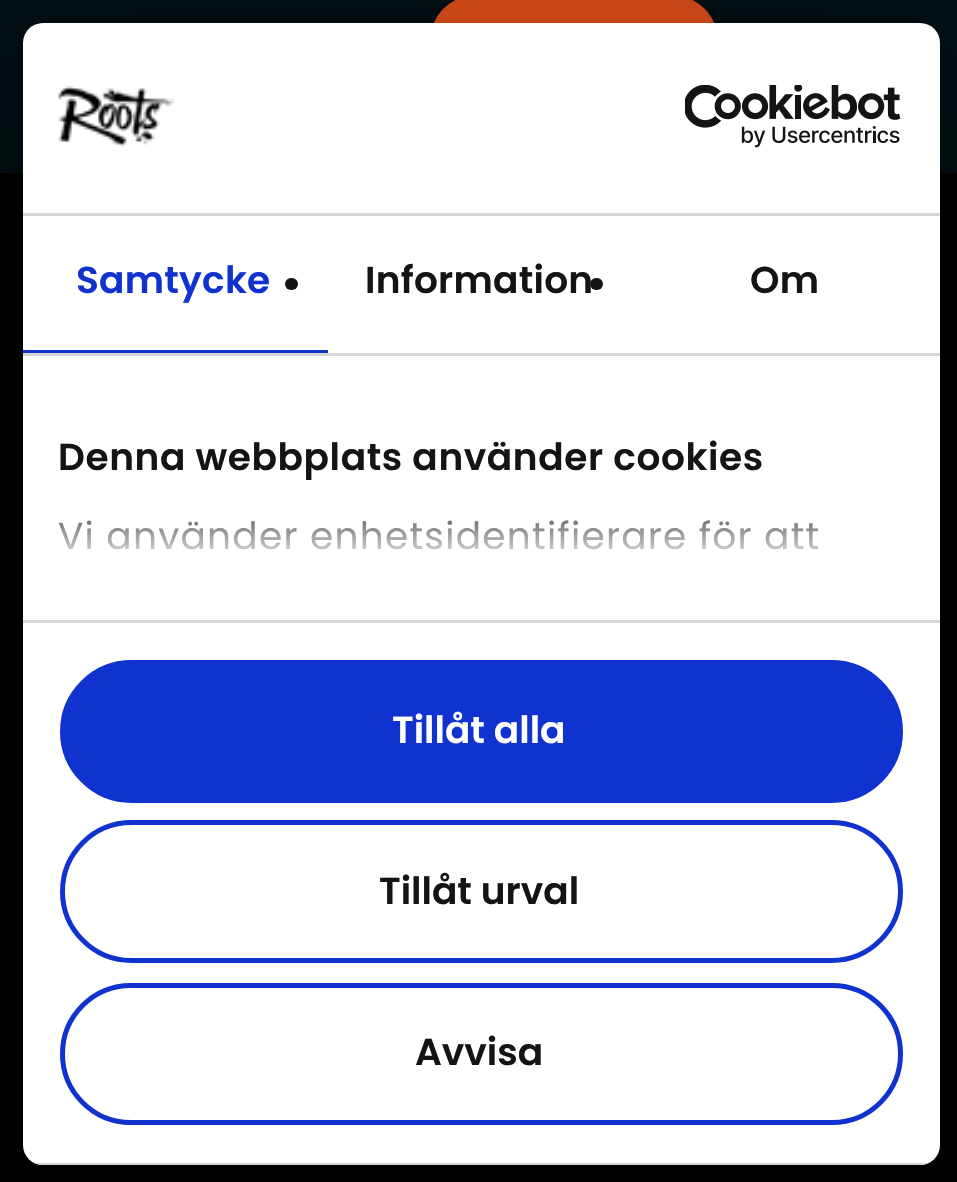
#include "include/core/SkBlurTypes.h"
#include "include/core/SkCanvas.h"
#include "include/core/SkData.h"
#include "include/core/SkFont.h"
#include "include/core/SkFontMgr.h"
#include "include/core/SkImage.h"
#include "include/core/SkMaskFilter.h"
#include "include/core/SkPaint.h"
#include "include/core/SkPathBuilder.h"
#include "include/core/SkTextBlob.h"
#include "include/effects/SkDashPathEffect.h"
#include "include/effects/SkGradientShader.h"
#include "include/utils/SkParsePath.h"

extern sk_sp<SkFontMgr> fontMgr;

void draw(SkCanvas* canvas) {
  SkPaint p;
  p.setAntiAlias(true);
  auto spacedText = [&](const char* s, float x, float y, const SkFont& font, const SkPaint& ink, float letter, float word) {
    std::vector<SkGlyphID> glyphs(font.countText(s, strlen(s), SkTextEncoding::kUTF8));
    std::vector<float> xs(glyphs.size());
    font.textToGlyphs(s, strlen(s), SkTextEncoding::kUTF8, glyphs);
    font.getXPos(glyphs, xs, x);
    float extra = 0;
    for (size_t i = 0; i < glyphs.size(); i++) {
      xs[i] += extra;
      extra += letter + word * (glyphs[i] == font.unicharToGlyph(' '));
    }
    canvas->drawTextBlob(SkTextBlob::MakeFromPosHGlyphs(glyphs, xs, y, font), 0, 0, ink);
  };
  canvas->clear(SK_ColorBLACK);
  p.setColor(SkColorSetRGB(2, 14, 18));
  canvas->drawRect(SkRect::MakeLTRB(0, 0, 957, 173), p);
  p.setColor(SkColorSetRGB(207, 73, 23));
  canvas->drawRoundRect(SkRect::MakeLTRB(430, -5, 718, 88), 46.5f, 46.5f, p);
  canvas->save();
  canvas->clipPath(SkPathBuilder(SkPathFillType::kEvenOdd).moveTo(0, 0).lineTo(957, 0).lineTo(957, 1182).lineTo(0, 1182).close().moveTo(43, 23).lineTo(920, 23).cubicTo(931, 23, 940, 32, 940, 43).lineTo(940, 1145).cubicTo(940, 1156, 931, 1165, 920, 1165).lineTo(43, 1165).cubicTo(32, 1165, 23, 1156, 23, 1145).lineTo(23, 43).cubicTo(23, 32, 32, 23, 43, 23).close().detach(), true);
  p.setColor(SkColorSetARGB(77, 0, 0, 0));
  p.setMaskFilter(SkMaskFilter::MakeBlur(kNormal_SkBlurStyle, 85));
  canvas->drawRoundRect(SkRect::MakeLTRB(23, 103, 940, 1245), 20, 20, p);
  p.setMaskFilter(nullptr);
  canvas->restore();
  p.setColor(SK_ColorWHITE);
  canvas->drawRoundRect(SkRect::MakeLTRB(23, 23, 940, 1165), 20, 20, p);
  p.setColor(SkColorSetRGB(214, 214, 214));
  canvas->drawRect(SkRect::MakeLTRB(23, 213, 940, 216), p);
  canvas->drawImageRect(SkImages::DeferredFromEncodedData(SkData::MakeFromFileName("images/1.png")), SkRect::MakeLTRB(58, 85, 174, 147), SkSamplingOptions());
  canvas->drawImageRect(SkImages::DeferredFromEncodedData(SkData::MakeFromFileName("images/2.png")), SkRect::MakeLTRB(685, 85, 901, 148), SkSamplingOptions());
  canvas->drawRect(SkRect::MakeLTRB(23, 353, 940, 356), p);
  p.setColor(SkColorSetRGB(16, 50, 207));
  canvas->drawRect(SkRect::MakeLTRB(23, 350, 328, 353), p);
  p.setColor(SkColorSetRGB(20, 20, 20));
  canvas->drawRoundRect(SkRect::MakeLTRB(285, 278, 298, 290), 6, 6, p);
  canvas->drawRoundRect(SkRect::MakeLTRB(590, 278, 603, 290), 6, 6, p);
  p.setColor(SkColorSetRGB(214, 214, 214));
  canvas->drawRect(SkRect::MakeLTRB(23, 620, 940, 623), p);
  canvas->save();
  canvas->clipPath(SkPathBuilder().moveTo(43, 23).lineTo(920, 23).cubicTo(931, 23, 940, 32, 940, 43).lineTo(940, 1145).cubicTo(940, 1156, 931, 1165, 920, 1165).lineTo(43, 1165).cubicTo(32, 1165, 23, 1156, 23, 1145).lineTo(23, 43).cubicTo(23, 32, 32, 23, 43, 23).close().detach(), true);
  canvas->drawRect(SkRect::MakeLTRB(34, 1163, 929, 1165), p);
  canvas->restore();
  p.setColor(SkColorSetRGB(16, 50, 207));
  canvas->drawRoundRect(SkRect::MakeLTRB(62.5f, 662.5f, 900.5f, 800.5f), 69, 69, p);
  p.setStyle(SkPaint::kStroke_Style);
  p.setStrokeWidth(5);
  canvas->drawRoundRect(SkRect::MakeLTRB(62.5f, 662.5f, 900.5f, 800.5f), 69, 69, p);
  canvas->drawRoundRect(SkRect::MakeLTRB(62.5f, 822.5f, 900.5f, 960.5f), 69, 69, p);
  canvas->drawRoundRect(SkRect::MakeLTRB(62.5f, 985.5f, 900.5f, 1122.5f), 68.5f, 68.5f, p);
  SkFont font1(fontMgr->matchFamilyStyle("Poppins", SkFontStyle(600, SkFontStyle::kNormal_Width, SkFontStyle::kUpright_Slant)), 37.5f);
  font1.setSubpixel(true);
  p.setStyle(SkPaint::kFill_Style);
  spacedText("Samtycke", 76, 293, font1, p, 0.25f, 0);
  p.setColor(SkColorSetRGB(20, 20, 20));
  spacedText("Information", 365, 293, font1, p, 0.25f, 0);
  spacedText("Om", 750, 293, font1, p, 0.25f, 0);
  spacedText("Denna webbplats använder cookies", 58, 470, font1, p, 0.6f, 0);
  SkFont font2(fontMgr->matchFamilyStyle("Poppins", SkFontStyle::Normal()), 37.5f);
  font2.setSubpixel(true);
  spacedText("Vi använder enhetsidentifierare för att", 58, 549, font2, p, 1.25f, 0);
  {
    const SkColor colors[] = {SK_ColorWHITE, SkColorSetARGB(204, 255, 255, 255), SkColorSetARGB(0, 255, 255, 255)};
    const float stops[] = {0, 0.5f, 1};
    const SkPoint ends[] = {{464, 619}, {464, 486}};
    p.setShader(SkGradientShader::MakeLinear(ends, colors, stops, 3, SkTileMode::kClamp));
    p.setAlpha(255);
  }
  canvas->drawRect(SkRect::MakeLTRB(58, 520, 818, 550), p);
  p.setShader(nullptr);
  p.setColor(SK_ColorWHITE);
  canvas->drawString("Tillåt alla", 392, 743, font1, p);
  p.setColor(SkColorSetRGB(20, 20, 20));
  canvas->drawString("Tillåt urval", 379, 904, font1, p);
  canvas->drawString("Avvisa", 415, 1065, font1, p);
}
